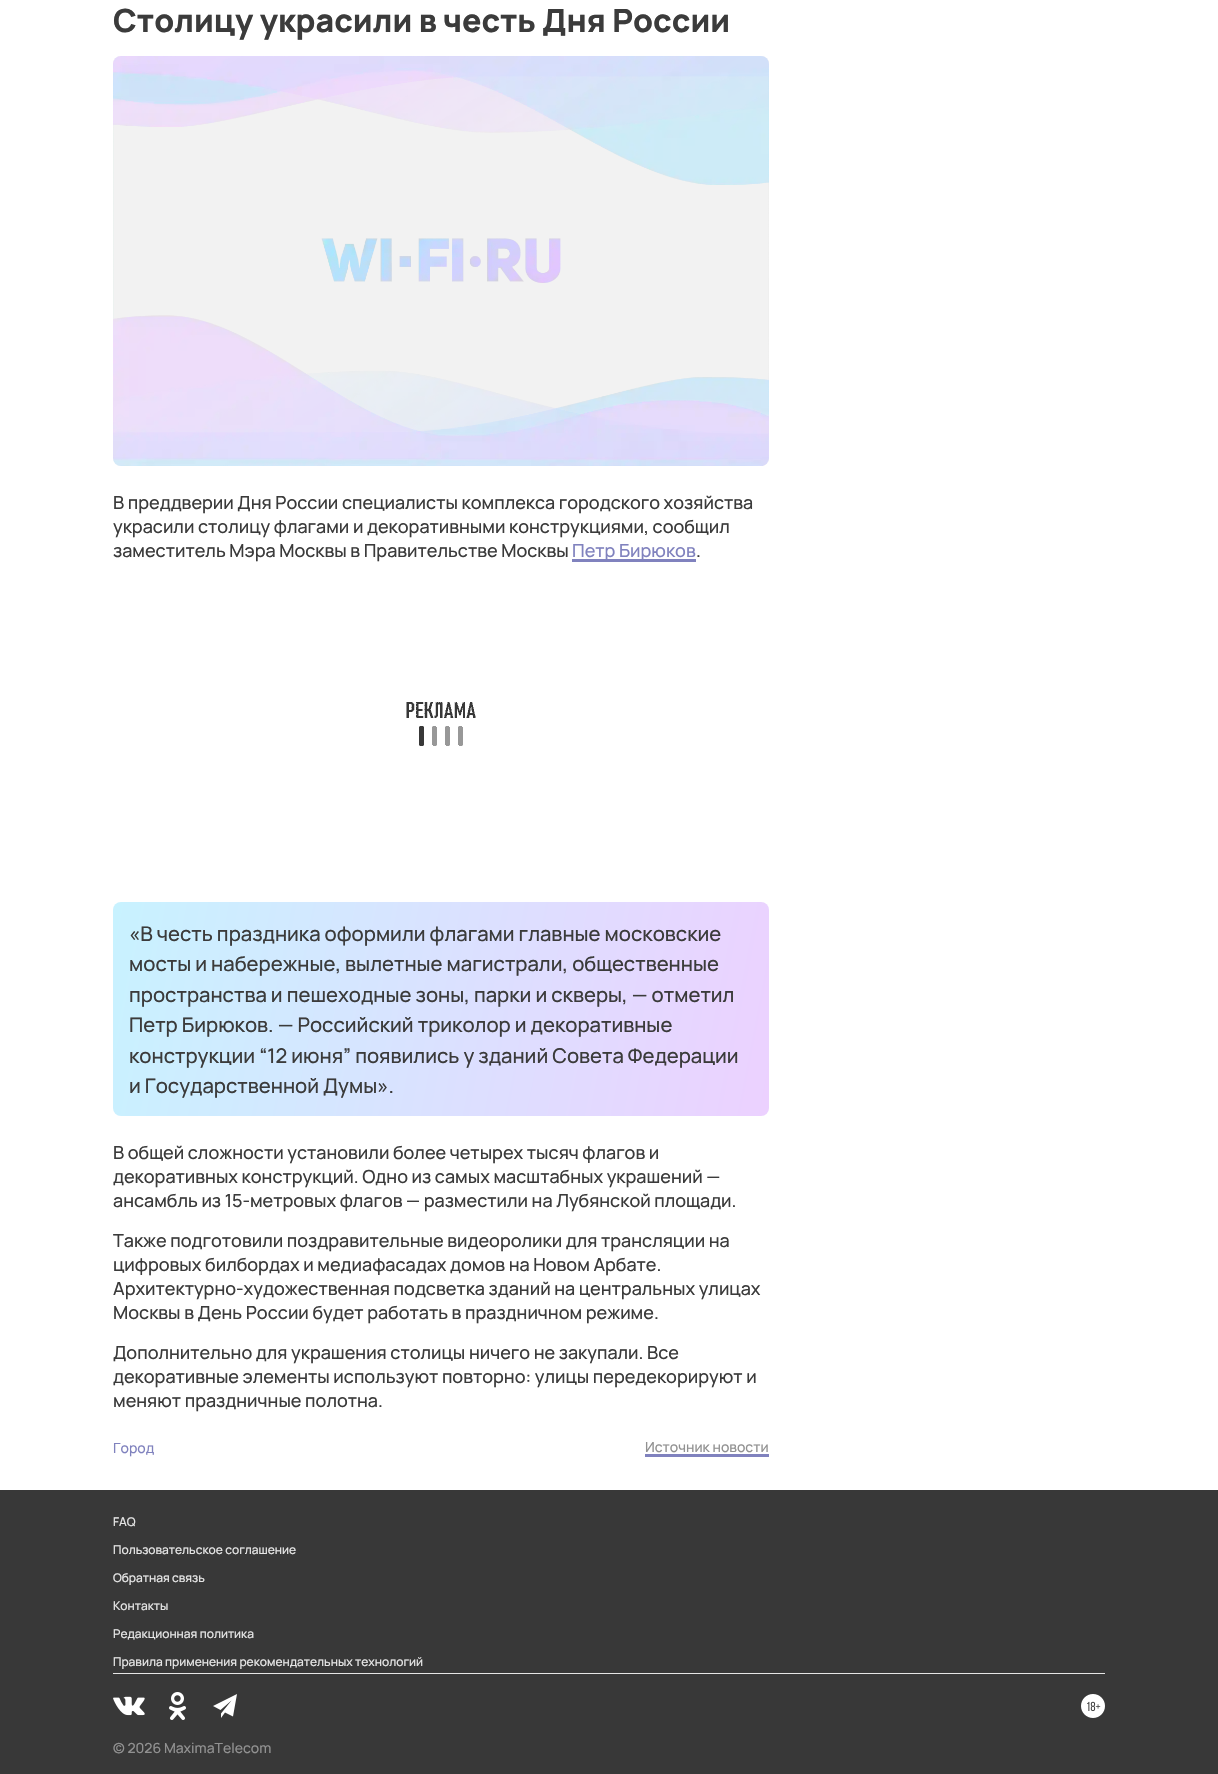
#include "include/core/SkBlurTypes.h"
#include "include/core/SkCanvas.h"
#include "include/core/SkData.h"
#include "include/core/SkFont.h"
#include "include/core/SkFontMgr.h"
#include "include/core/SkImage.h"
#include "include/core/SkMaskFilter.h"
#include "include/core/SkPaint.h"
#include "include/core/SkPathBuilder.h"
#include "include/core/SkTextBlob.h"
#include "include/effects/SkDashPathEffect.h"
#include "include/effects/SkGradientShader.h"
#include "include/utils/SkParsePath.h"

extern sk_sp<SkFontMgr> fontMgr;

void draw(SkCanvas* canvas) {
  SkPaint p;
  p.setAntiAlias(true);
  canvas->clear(SK_ColorWHITE);
  p.setColor(SkColorSetRGB(242, 242, 242));
  canvas->drawRoundRect(SkRect::MakeLTRB(113, 56, 769, 466), 8, 8, p);
  canvas->drawImageRect(SkImages::DeferredFromEncodedData(SkData::MakeFromFileName("images/1.png")), SkRect::MakeLTRB(113, 56, 769, 466), SkSamplingOptions());
  p.setColor(SkColorSetRGB(128, 130, 190));
  canvas->drawRect(SkRect::MakeLTRB(572, 559, 696, 562), p);
  canvas->drawImageRect(SkImages::DeferredFromEncodedData(SkData::MakeFromFileName("images/2.png")), SkRect::MakeLTRB(406, 702, 476, 746), SkSamplingOptions());
  {
    const SkColor colors[] = {SkColorSetRGB(200, 242, 255), SkColorSetRGB(236, 209, 255)};
    const float stops[] = {0, 1};
    const SkPoint ends[] = {{105, 944}, {777, 1074}};
    p.setShader(SkGradientShader::MakeLinear(ends, colors, stops, 2, SkTileMode::kClamp));
    p.setAlpha(255);
  }
  canvas->drawRoundRect(SkRect::MakeLTRB(113, 902, 769, 1116), 8, 8, p);
  p.setShader(nullptr);
  p.setColor(SkColorSetRGB(128, 130, 190));
  canvas->drawRect(SkRect::MakeLTRB(645, 1454, 769, 1457), p);
  p.setColor(SkColorSetRGB(56, 56, 56));
  canvas->drawRect(SkRect::MakeLTRB(0, 1490, 1218, 1774), p);
  p.setColor(SkColorSetRGB(230, 230, 230));
  canvas->drawRect(SkRect::MakeLTRB(113, 1673, 1105, 1674), p);
  canvas->drawImageRect(SkImages::DeferredFromEncodedData(SkData::MakeFromFileName("images/3.png")), SkRect::MakeLTRB(113, 1696, 145, 1716), SkSamplingOptions());
  canvas->drawImageRect(SkImages::DeferredFromEncodedData(SkData::MakeFromFileName("images/4.png")), SkRect::MakeLTRB(169, 1692, 186, 1720), SkSamplingOptions());
  p.setColor(SK_ColorWHITE);
  canvas->drawPath(SkPathBuilder().moveTo(213, 1706).lineTo(220.5f, 1710).lineTo(231.5f, 1700.5f).lineTo(221, 1713.5f).lineTo(221, 1718).lineTo(225, 1712.5f).lineTo(233, 1716.5f).lineTo(237, 1694).close().detach(), p);
  canvas->drawImageRect(SkImages::DeferredFromEncodedData(SkData::MakeFromFileName("images/5.png")), SkRect::MakeLTRB(1081, 1694, 1105, 1718), SkSamplingOptions());
  SkFont font1(fontMgr->matchFamilyStyle("Manrope", SkFontStyle(800, SkFontStyle::kNormal_Width, SkFontStyle::kUpright_Slant)), 32);
  font1.setSubpixel(true);
  p.setColor(SkColorSetRGB(59, 59, 59));
  canvas->drawString("Столицу украсили в честь Дня России", 113, 32, font1, p);
  SkFont font2(fontMgr->matchFamilyStyle("Manrope", SkFontStyle(500, SkFontStyle::kNormal_Width, SkFontStyle::kUpright_Slant)), 18);
  font2.setSubpixel(true);
  canvas->drawString("В преддверии Дня России специалисты комплекса городского хозяйства", 113, 509, font2, p);
  canvas->drawString("украсили столицу флагами и декоративными конструкциями, сообщил", 113, 533, font2, p);
  canvas->drawString("заместитель Мэра Москвы в Правительстве Москвы", 113, 557, font2, p);
  p.setColor(SkColorSetRGB(128, 130, 190));
  canvas->drawString("Петр Бирюков", 572, 557, font2, p);
  p.setColor(SkColorSetRGB(59, 59, 59));
  canvas->drawString(".", 696, 557, font2, p);
  SkFont font3(fontMgr->matchFamilyStyle("Manrope", SkFontStyle(500, SkFontStyle::kNormal_Width, SkFontStyle::kUpright_Slant)), 20.25f);
  font3.setSubpixel(true);
  canvas->drawString("«В честь праздника оформили флагами главные московские", 129, 941, font3, p);
  canvas->drawString("мосты и набережные, вылетные магистрали, общественные", 129, 971, font3, p);
  canvas->drawString("пространства и пешеходные зоны, парки и скверы, — отметил", 129, 1002, font3, p);
  canvas->drawString("Петр Бирюков. — Российский триколор и декоративные", 129, 1032, font3, p);
  canvas->drawString("конструкции “12 июня” появились у зданий Совета Федерации", 129, 1063, font3, p);
  canvas->drawString("и Государственной Думы».", 129, 1093, font3, p);
  canvas->drawString("В общей сложности установили более четырех тысяч флагов и", 113, 1159, font2, p);
  canvas->drawString("декоративных конструкций. Одно из самых масштабных украшений —", 113, 1183, font2, p);
  canvas->drawString("ансамбль из 15-метровых флагов — разместили на Лубянской площади.", 113, 1207, font2, p);
  canvas->drawString("Также подготовили поздравительные видеоролики для трансляции на", 113, 1247, font2, p);
  canvas->drawString("цифровых билбордах и медиафасадах домов на Новом Арбате.", 113, 1271, font2, p);
  canvas->drawString("Архитектурно-художественная подсветка зданий на центральных улицах", 113, 1295, font2, p);
  canvas->drawString("Москвы в День России будет работать в праздничном режиме.", 113, 1319, font2, p);
  canvas->drawString("Дополнительно для украшения столицы ничего не закупали. Все", 113, 1359, font2, p);
  canvas->drawString("декоративные элементы используют повторно: улицы передекорируют и", 113, 1383, font2, p);
  canvas->drawString("меняют праздничные полотна.", 113, 1407, font2, p);
  SkFont font4(fontMgr->matchFamilyStyle("Manrope", SkFontStyle(500, SkFontStyle::kNormal_Width, SkFontStyle::kUpright_Slant)), 14);
  font4.setSubpixel(true);
  p.setColor(SkColorSetRGB(128, 130, 190));
  canvas->drawString("Город", 113, 1453, font4, p);
  p.setColor(SkColorSetRGB(145, 145, 145));
  canvas->drawString("Источник новости", 645, 1452, font4, p);
  SkFont font5(fontMgr->matchFamilyStyle("Manrope", SkFontStyle(500, SkFontStyle::kNormal_Width, SkFontStyle::kUpright_Slant)), 12);
  font5.setSubpixel(true);
  p.setColor(SkColorSetRGB(230, 230, 230));
  canvas->drawString("FAQ", 113, 1526, font5, p);
  canvas->drawString("Пользовательское соглашение", 113, 1554, font5, p);
  canvas->drawString("Обратная связь", 113, 1582, font5, p);
  canvas->drawString("Контакты", 113, 1610, font5, p);
  canvas->drawString("Редакционная политика", 113, 1638, font5, p);
  canvas->drawString("Правила применения рекомендательных технологий", 113, 1666, font5, p);
  p.setColor(SkColorSetRGB(145, 145, 145));
  canvas->drawString("© 2026 MaximaTelecom", 113, 1753, font4, p);
}
